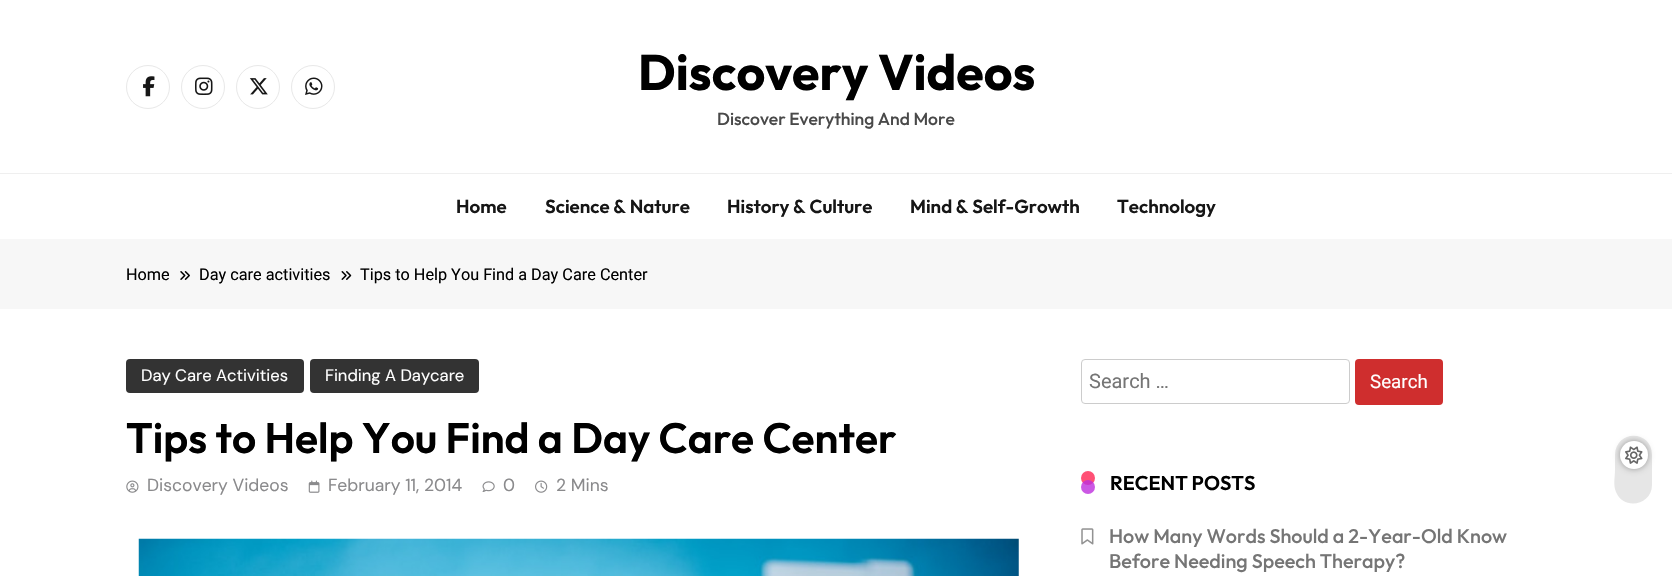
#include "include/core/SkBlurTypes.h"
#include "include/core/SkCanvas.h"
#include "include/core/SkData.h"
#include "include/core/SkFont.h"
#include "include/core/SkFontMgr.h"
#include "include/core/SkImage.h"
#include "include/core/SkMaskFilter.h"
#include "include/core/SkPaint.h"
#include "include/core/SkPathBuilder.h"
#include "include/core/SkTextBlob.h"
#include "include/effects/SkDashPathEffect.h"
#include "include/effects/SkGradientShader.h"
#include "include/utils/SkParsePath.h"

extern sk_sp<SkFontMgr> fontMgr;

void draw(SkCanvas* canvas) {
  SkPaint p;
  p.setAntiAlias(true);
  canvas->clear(SK_ColorWHITE);
  p.setStyle(SkPaint::kStroke_Style);
  p.setStrokeWidth(1);
  p.setColor(SkColorSetRGB(232, 232, 232));
  canvas->drawCircle(148, 87, 21.5f, p);
  canvas->drawImageRect(SkImages::DeferredFromEncodedData(SkData::MakeFromFileName("images/1.png")), SkRect::MakeLTRB(143, 76, 155, 97), SkSamplingOptions());
  canvas->drawCircle(203, 87, 21.5f, p);
  canvas->drawImageRect(SkImages::DeferredFromEncodedData(SkData::MakeFromFileName("images/2.png")), SkRect::MakeLTRB(195, 77, 213, 95), SkSamplingOptions());
  canvas->drawCircle(258, 87, 21.5f, p);
  canvas->drawImageRect(SkImages::DeferredFromEncodedData(SkData::MakeFromFileName("images/3.png")), SkRect::MakeLTRB(249, 78, 268, 95), SkSamplingOptions());
  canvas->drawCircle(313, 87, 21.5f, p);
  canvas->drawImageRect(SkImages::DeferredFromEncodedData(SkData::MakeFromFileName("images/4.png")), SkRect::MakeLTRB(305, 77, 323, 95), SkSamplingOptions());
  p.setStyle(SkPaint::kFill_Style);
  p.setColor(SkColorSetRGB(239, 239, 239));
  canvas->drawRect(SkRect::MakeLTRB(0, 173, 1672, 174), p);
  p.setColor(SkColorSetRGB(247, 247, 247));
  canvas->drawRect(SkRect::MakeLTRB(0, 239, 1672, 309), p);
  canvas->drawImageRect(SkImages::DeferredFromEncodedData(SkData::MakeFromFileName("images/5.png")), SkRect::MakeLTRB(180, 271, 190, 280), SkSamplingOptions());
  canvas->drawImageRect(SkImages::DeferredFromEncodedData(SkData::MakeFromFileName("images/6.png")), SkRect::MakeLTRB(341, 271, 352, 280), SkSamplingOptions());
  p.setColor(SkColorSetRGB(51, 51, 51));
  canvas->drawRoundRect(SkRect::MakeLTRB(126, 359, 304, 393), 4, 4, p);
  canvas->drawRoundRect(SkRect::MakeLTRB(310, 359, 479, 393), 4, 4, p);
  canvas->drawImageRect(SkImages::DeferredFromEncodedData(SkData::MakeFromFileName("images/7.png")), SkRect::MakeLTRB(126, 480, 139, 493), SkSamplingOptions());
  canvas->drawImageRect(SkImages::DeferredFromEncodedData(SkData::MakeFromFileName("images/8.png")), SkRect::MakeLTRB(308, 480, 320, 493), SkSamplingOptions());
  canvas->drawImageRect(SkImages::DeferredFromEncodedData(SkData::MakeFromFileName("images/9.png")), SkRect::MakeLTRB(482, 481, 495, 492), SkSamplingOptions());
  canvas->drawImageRect(SkImages::DeferredFromEncodedData(SkData::MakeFromFileName("images/10.png")), SkRect::MakeLTRB(535, 480, 548, 493), SkSamplingOptions());
  canvas->drawImageRect(SkImages::DeferredFromEncodedData(SkData::MakeFromFileName("images/11.png")), SkRect::MakeLTRB(138, 538, 1019, 576), SkSamplingOptions());
  p.setStyle(SkPaint::kStroke_Style);
  p.setColor(SkColorSetRGB(204, 204, 204));
  canvas->drawRoundRect(SkRect::MakeLTRB(1081.5f, 359.5f, 1349.5f, 403.5f), 3.5f, 3.5f, p);
  p.setStyle(SkPaint::kFill_Style);
  p.setColor(SkColorSetRGB(207, 46, 46));
  canvas->drawRoundRect(SkRect::MakeLTRB(1355, 359, 1443, 405), 4, 4, p);
  p.setColor(SkColorSetRGB(255, 80, 117));
  canvas->drawCircle(1088, 478, 7, p);
  p.setColor(SkColorSetARGB(204, 190, 46, 221));
  canvas->drawCircle(1088, 487, 7, p);
  canvas->drawImageRect(SkImages::DeferredFromEncodedData(SkData::MakeFromFileName("images/12.png")), SkRect::MakeLTRB(1081, 528, 1094, 545), SkSamplingOptions());
  p.setColor(SkColorSetRGB(230, 230, 230));
  canvas->drawPath(SkPathBuilder().moveTo(1652, 455).lineTo(1652, 485).cubicTo(1652, 505, 1624, 511, 1616, 492).cubicTo(1613, 485, 1615, 477, 1615, 470).lineTo(1615, 455).cubicTo(1616, 429, 1652, 430, 1652, 455).close().detach(), p);
  p.setColor(SkColorSetARGB(89, 0, 0, 0));
  p.setMaskFilter(SkMaskFilter::MakeBlur(kNormal_SkBlurStyle, 3));
  canvas->drawRoundRect(SkRect::MakeLTRB(1620, 441, 1648, 469), 14, 14, p);
  p.setMaskFilter(nullptr);
  p.setColor(SK_ColorWHITE);
  canvas->drawCircle(1634, 455, 14, p);
  canvas->drawImageRect(SkImages::DeferredFromEncodedData(SkData::MakeFromFileName("images/13.png")), SkRect::MakeLTRB(1625, 446, 1643, 464), SkSamplingOptions());
  SkFont font1(fontMgr->matchFamilyStyle("Outfit", SkFontStyle::Bold()), 50);
  font1.setSubpixel(true);
  p.setColor(SK_ColorBLACK);
  canvas->drawString("Discovery Videos", 638, 90, font1, p);
  SkFont font2(fontMgr->matchFamilyStyle("Outfit", SkFontStyle(500, SkFontStyle::kNormal_Width, SkFontStyle::kUpright_Slant)), 17.5f);
  font2.setSubpixel(true);
  p.setColor(SkColorSetRGB(73, 73, 73));
  canvas->drawString("Discover Everything And More", 717, 125, font2, p);
  SkFont font3(fontMgr->matchFamilyStyle("Outfit", SkFontStyle(600, SkFontStyle::kNormal_Width, SkFontStyle::kUpright_Slant)), 18.75f);
  font3.setSubpixel(true);
  p.setColor(SkColorSetRGB(22, 22, 22));
  canvas->drawString("Home", 456, 213, font3, p);
  canvas->drawString("Science & Nature", 545, 213, font3, p);
  canvas->drawString("History & Culture", 727, 213, font3, p);
  canvas->drawString("Mind & Self-Growth", 910, 213, font3, p);
  canvas->drawString("Technology", 1117, 213, font3, p);
  SkFont font4(fontMgr->matchFamilyStyle("Roboto", SkFontStyle::Normal()), 16.25f);
  font4.setSubpixel(true);
  p.setColor(SK_ColorBLACK);
  canvas->drawString("Home", 126, 280, font4, p);
  canvas->drawString("Day care activities", 199, 280, font4, p);
  canvas->drawString("Tips to Help You Find a Day Care Center", 360, 280, font4, p);
  SkFont font5(fontMgr->matchFamilyStyle("DM Sans", SkFontStyle::Normal()), 16.6f);
  font5.setSubpixel(true);
  p.setColor(SK_ColorWHITE);
  canvas->drawString("Day Care Activities", 141, 381, font5, p);
  canvas->drawString("Finding A Daycare", 325, 381, font5, p);
  SkFont font6(fontMgr->matchFamilyStyle("Outfit", SkFontStyle(600, SkFontStyle::kNormal_Width, SkFontStyle::kUpright_Slant)), 42.5f);
  font6.setSubpixel(true);
  p.setColor(SK_ColorBLACK);
  canvas->drawString("Tips to Help You Find a Day Care Center", 126, 453, font6, p);
  SkFont font7(fontMgr->matchFamilyStyle("DM Sans", SkFontStyle::Normal()), 17.5f);
  font7.setSubpixel(true);
  p.setColor(SkColorSetRGB(138, 138, 140));
  canvas->drawString("Discovery Videos", 147, 491, font7, p);
  canvas->drawString("February 11, 2014", 328, 491, font7, p);
  canvas->drawString("0", 503, 491, font7, p);
  canvas->drawString("2 Mins", 556, 491, font7, p);
  SkFont font8(fontMgr->matchFamilyStyle("Roboto", SkFontStyle::Normal()), 20);
  font8.setSubpixel(true);
  p.setColor(SkColorSetRGB(117, 117, 117));
  canvas->drawString("Search …", 1089, 388, font8, p);
  SkFont font9(fontMgr->matchFamilyStyle("Roboto", SkFontStyle::Normal()), 18.75f);
  font9.setSubpixel(true);
  p.setColor(SK_ColorWHITE);
  canvas->drawString("Search", 1370, 388, font9, p);
  SkFont font10(fontMgr->matchFamilyStyle("Outfit", SkFontStyle(600, SkFontStyle::kNormal_Width, SkFontStyle::kUpright_Slant)), 20);
  font10.setSubpixel(true);
  p.setColor(SK_ColorBLACK);
  canvas->drawString("RECENT POSTS", 1110, 490, font10, p);
  SkFont font11(fontMgr->matchFamilyStyle("Outfit", SkFontStyle(500, SkFontStyle::kNormal_Width, SkFontStyle::kUpright_Slant)), 19.8f);
  font11.setSubpixel(true);
  p.setColor(SkColorSetRGB(117, 117, 117));
  canvas->drawString("How Many Words Should a 2-Year-Old Know", 1109, 543, font11, p);
  canvas->drawString("Before Needing Speech Therapy?", 1109, 568, font11, p);
}
